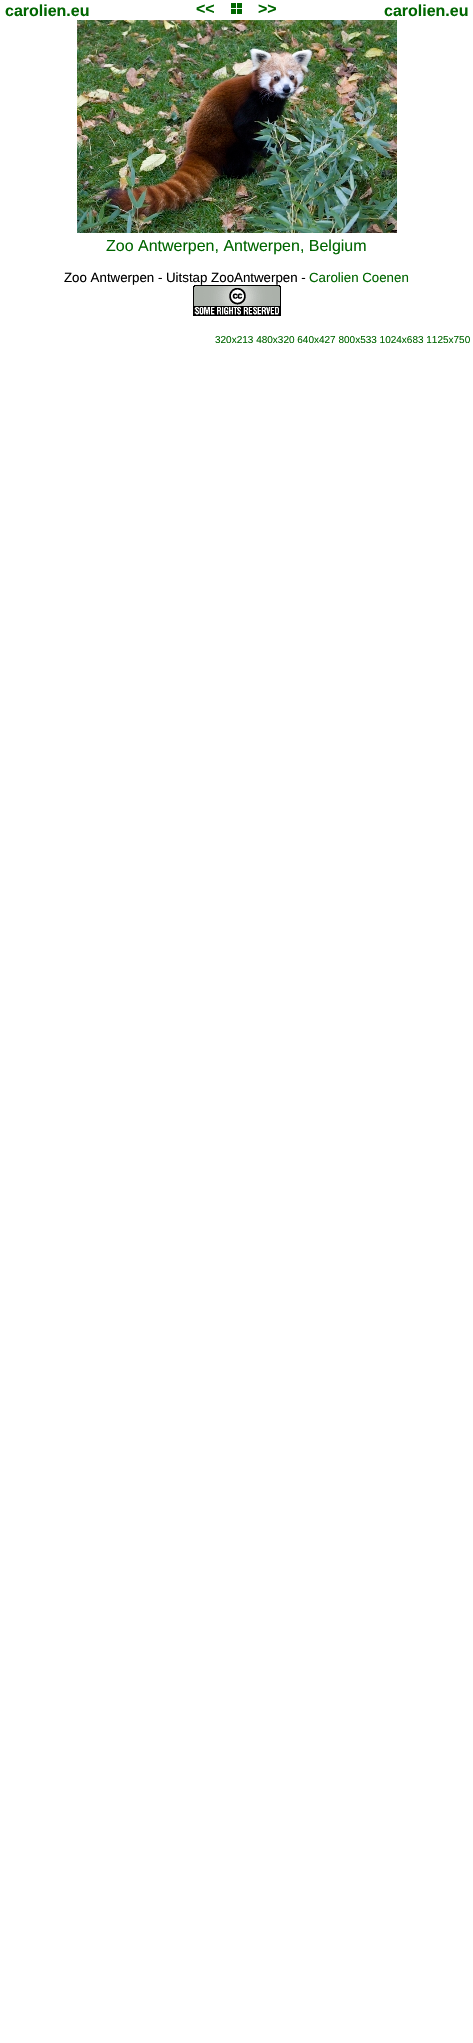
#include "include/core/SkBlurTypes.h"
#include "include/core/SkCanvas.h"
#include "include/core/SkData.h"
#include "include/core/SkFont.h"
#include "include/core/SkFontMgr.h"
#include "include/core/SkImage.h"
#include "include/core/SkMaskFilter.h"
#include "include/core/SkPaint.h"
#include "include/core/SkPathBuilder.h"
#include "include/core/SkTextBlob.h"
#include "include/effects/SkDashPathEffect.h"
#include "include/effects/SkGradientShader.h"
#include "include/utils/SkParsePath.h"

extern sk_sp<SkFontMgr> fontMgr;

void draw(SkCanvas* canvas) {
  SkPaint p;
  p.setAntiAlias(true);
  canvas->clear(SK_ColorWHITE);
  canvas->drawImageRect(SkImages::DeferredFromEncodedData(SkData::MakeFromFileName("images/1.png")), SkRect::MakeLTRB(231, 3, 242, 14), SkSamplingOptions());
  canvas->drawImageRect(SkImages::DeferredFromEncodedData(SkData::MakeFromFileName("images/2.png")), SkRect::MakeLTRB(77, 20, 397, 233), SkSamplingOptions());
  canvas->drawImageRect(SkImages::DeferredFromEncodedData(SkData::MakeFromFileName("images/3.png")), SkRect::MakeLTRB(193, 285, 281, 316), SkSamplingOptions());
  SkFont font1(fontMgr->matchFamilyStyle("Liberation Sans", SkFontStyle::Bold()), 16);
  font1.setSubpixel(true);
  p.setColor(SkColorSetRGB(0, 102, 0));
  canvas->drawString("carolien.eu", 5, 16, font1, p);
  canvas->drawString("<<", 196, 14, font1, p);
  canvas->drawString(">>", 258, 14, font1, p);
  canvas->drawString("carolien.eu", 384, 16, font1, p);
  SkFont font2(fontMgr->matchFamilyStyle("Liberation Sans", SkFontStyle::Normal()), 16);
  font2.setSubpixel(true);
  canvas->drawString("Zoo Antwerpen, Antwerpen, Belgium", 106, 251, font2, p);
  SkFont font3(fontMgr->matchFamilyStyle("Liberation Sans", SkFontStyle::Normal()), 13.3f);
  font3.setSubpixel(true);
  p.setColor(SK_ColorBLACK);
  canvas->drawString("Zoo Antwerpen - Uitstap ZooAntwerpen -", 64, 282, font3, p);
  p.setColor(SkColorSetRGB(0, 102, 0));
  canvas->drawString("Carolien Coenen", 309, 282, font3, p);
  SkFont font4(fontMgr->matchFamilyStyle("Liberation Sans", SkFontStyle::Normal()), 10);
  font4.setSubpixel(true);
  canvas->drawString("320x213 480x320 640x427 800x533 1024x683 1125x750", 215, 343, font4, p);
}
